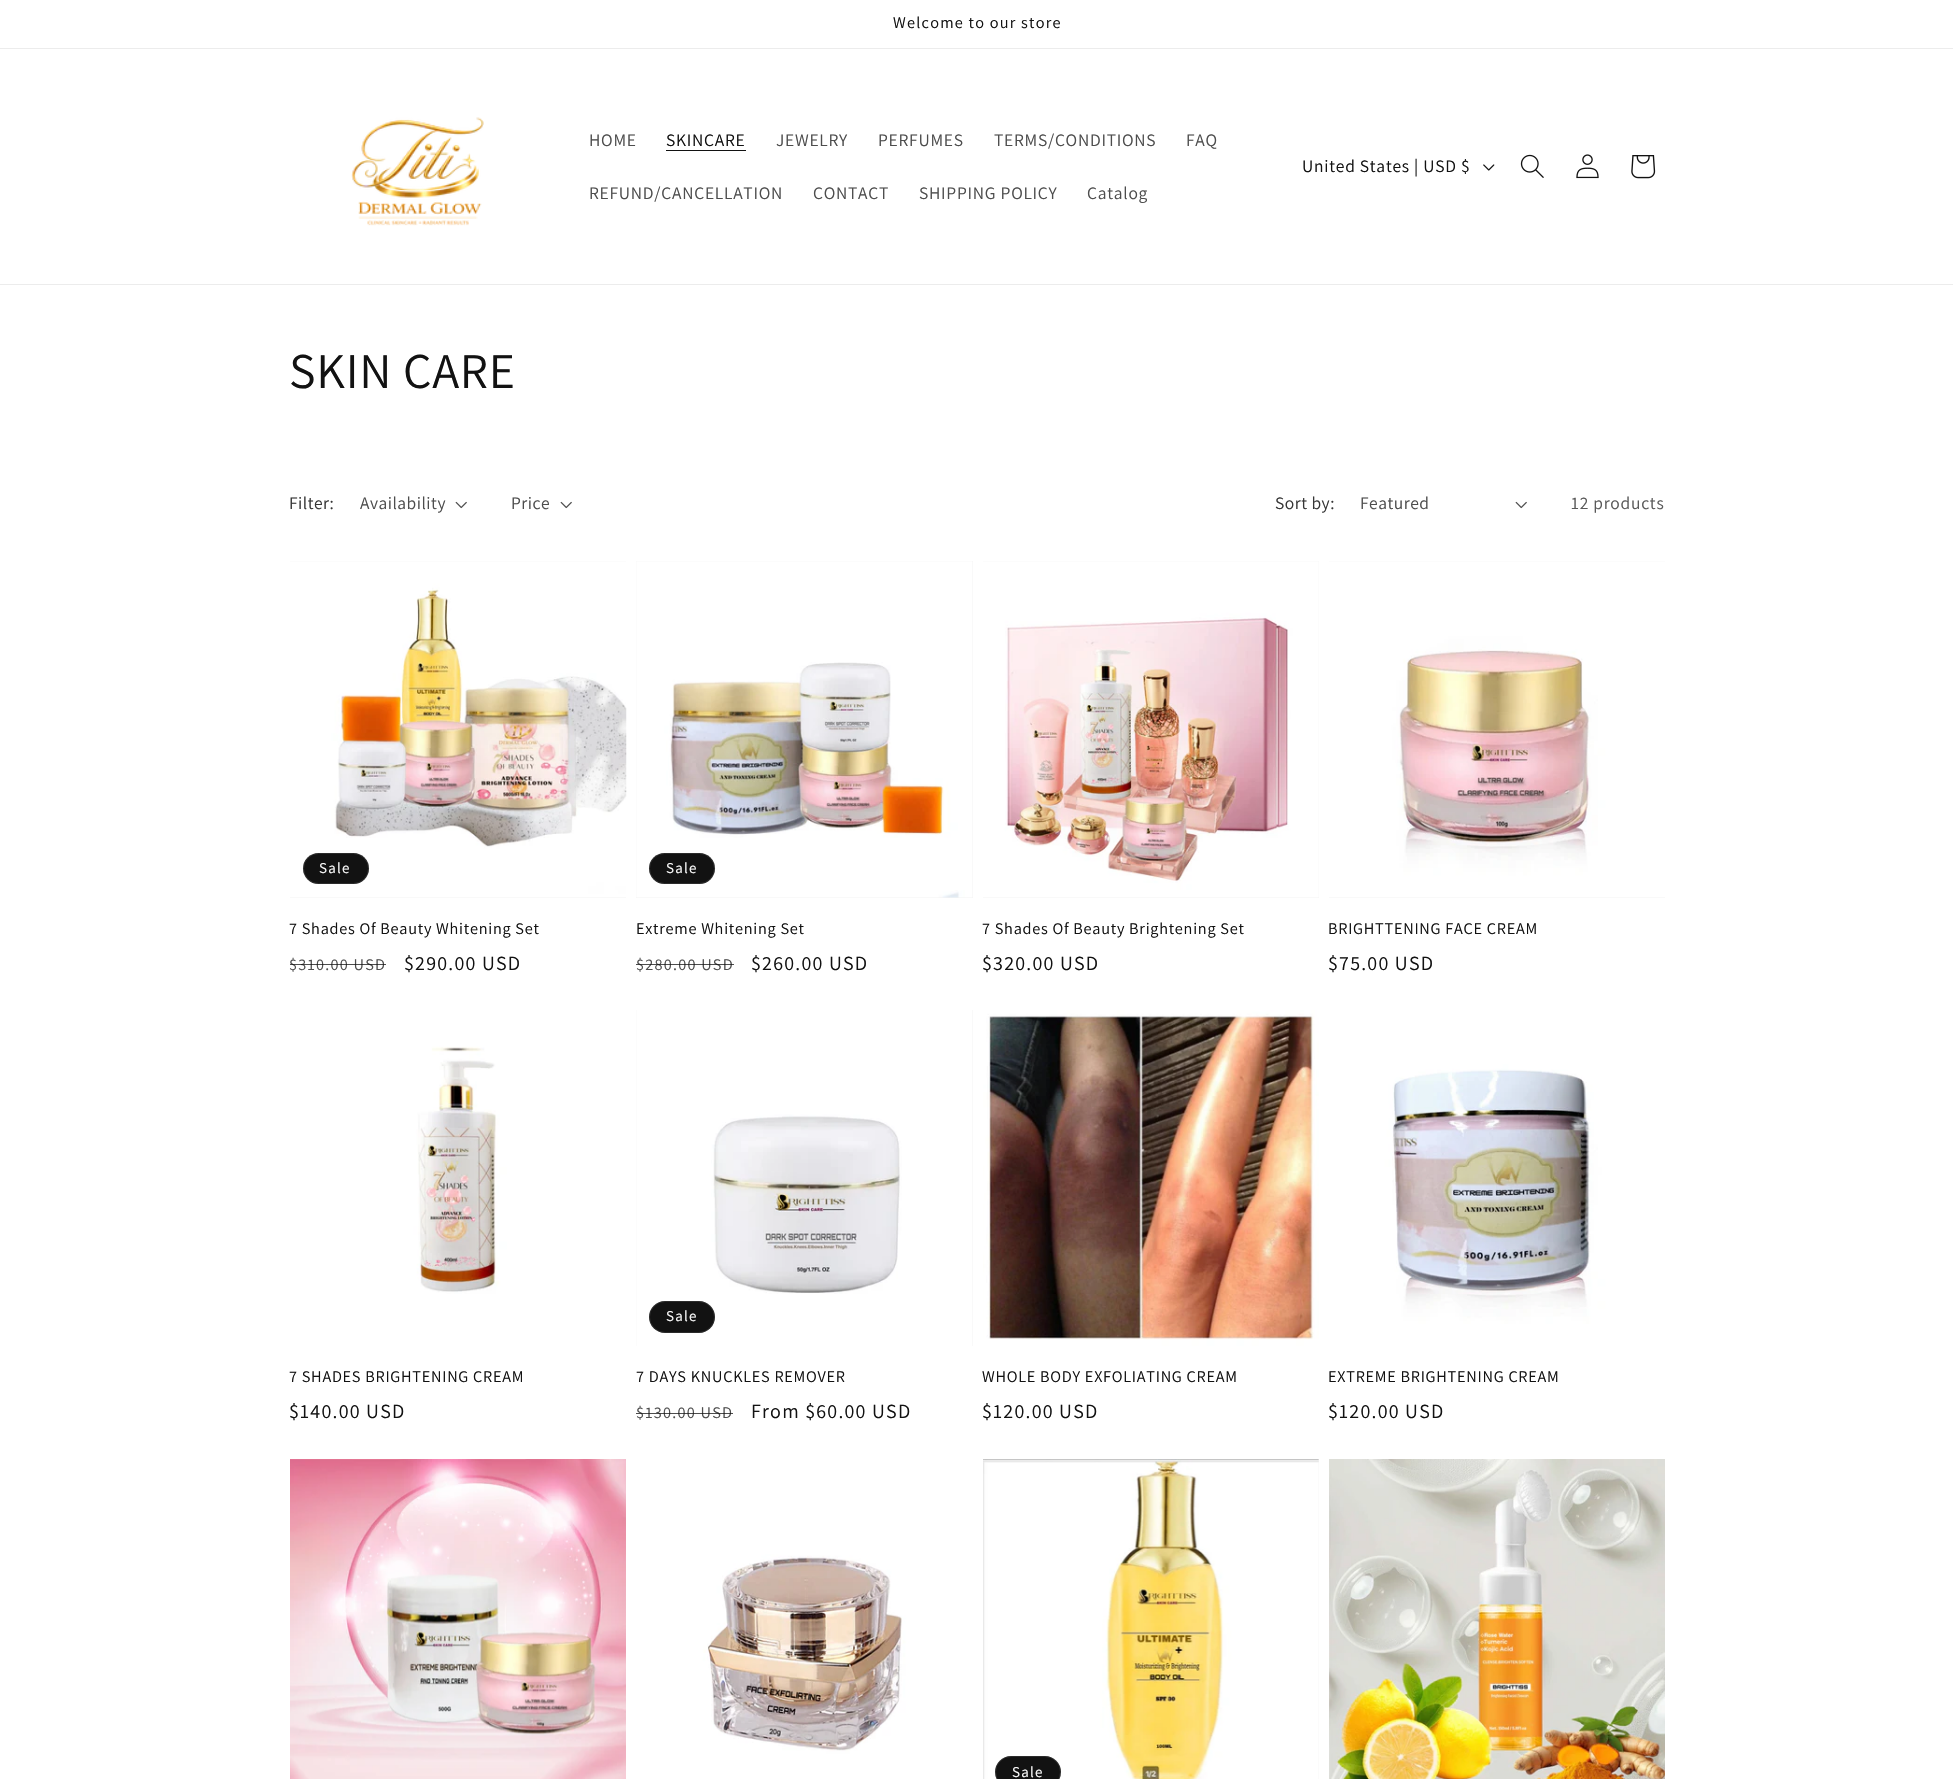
#include "include/core/SkBlurTypes.h"
#include "include/core/SkCanvas.h"
#include "include/core/SkData.h"
#include "include/core/SkFont.h"
#include "include/core/SkFontMgr.h"
#include "include/core/SkImage.h"
#include "include/core/SkMaskFilter.h"
#include "include/core/SkPaint.h"
#include "include/core/SkPathBuilder.h"
#include "include/core/SkTextBlob.h"
#include "include/effects/SkDashPathEffect.h"
#include "include/effects/SkGradientShader.h"
#include "include/utils/SkParsePath.h"

extern sk_sp<SkFontMgr> fontMgr;

void draw(SkCanvas* canvas) {
  SkPaint p;
  p.setAntiAlias(true);
  auto spacedText = [&](const char* s, float x, float y, const SkFont& font, const SkPaint& ink, float letter, float word) {
    std::vector<SkGlyphID> glyphs(font.countText(s, strlen(s), SkTextEncoding::kUTF8));
    std::vector<float> xs(glyphs.size());
    font.textToGlyphs(s, strlen(s), SkTextEncoding::kUTF8, glyphs);
    font.getXPos(glyphs, xs, x);
    float extra = 0;
    for (size_t i = 0; i < glyphs.size(); i++) {
      xs[i] += extra;
      extra += letter + word * (glyphs[i] == font.unicharToGlyph(' '));
    }
    canvas->drawTextBlob(SkTextBlob::MakeFromPosHGlyphs(glyphs, xs, y, font), 0, 0, ink);
  };
  canvas->clear(SK_ColorWHITE);
  p.setColor(SkColorSetRGB(236, 236, 236));
  canvas->drawRect(SkRect::MakeLTRB(0, 48, 1953, 49), p);
  canvas->drawRect(SkRect::MakeLTRB(0, 284, 1953, 285), p);
  canvas->drawImageRect(SkImages::DeferredFromEncodedData(SkData::MakeFromFileName("images/1.png")), SkRect::MakeLTRB(351, 117, 484, 226), SkSamplingOptions());
  p.setColor(SkColorSetRGB(18, 18, 18));
  canvas->drawRect(SkRect::MakeLTRB(666, 150, 746, 151), p);
  canvas->drawImageRect(SkImages::DeferredFromEncodedData(SkData::MakeFromFileName("images/2.png")), SkRect::MakeLTRB(1483, 164, 1495, 171), SkSamplingOptions());
  canvas->drawImageRect(SkImages::DeferredFromEncodedData(SkData::MakeFromFileName("images/3.png")), SkRect::MakeLTRB(1520, 154, 1544, 178), SkSamplingOptions());
  canvas->drawImageRect(SkImages::DeferredFromEncodedData(SkData::MakeFromFileName("images/4.png")), SkRect::MakeLTRB(1576, 154, 1599, 179), SkSamplingOptions());
  canvas->drawImageRect(SkImages::DeferredFromEncodedData(SkData::MakeFromFileName("images/5.png")), SkRect::MakeLTRB(1631, 155, 1656, 179), SkSamplingOptions());
  canvas->drawImageRect(SkImages::DeferredFromEncodedData(SkData::MakeFromFileName("images/6.png")), SkRect::MakeLTRB(455, 501, 467, 509), SkSamplingOptions());
  canvas->drawImageRect(SkImages::DeferredFromEncodedData(SkData::MakeFromFileName("images/6.png")), SkRect::MakeLTRB(560, 501, 572, 509), SkSamplingOptions());
  canvas->drawImageRect(SkImages::DeferredFromEncodedData(SkData::MakeFromFileName("images/6.png")), SkRect::MakeLTRB(1515, 501, 1527, 509), SkSamplingOptions());
  p.setColor(SkColorSetRGB(243, 243, 243));
  canvas->drawRect(SkRect::MakeLTRB(290, 561, 626, 898), p);
  canvas->drawImageRect(SkImages::DeferredFromEncodedData(SkData::MakeFromFileName("images/7.png")), SkRect::MakeLTRB(290, 561, 627, 898), SkSamplingOptions());
  p.setColor(SkColorSetRGB(18, 18, 18));
  canvas->drawRoundRect(SkRect::MakeLTRB(303, 853, 369, 884), 15.5f, 15.5f, p);
  p.setStyle(SkPaint::kStroke_Style);
  p.setStrokeWidth(1);
  p.setColor(SkColorSetARGB(26, 255, 255, 255));
  canvas->drawRoundRect(SkRect::MakeLTRB(303.5f, 853.5f, 368.5f, 883.5f), 15, 15, p);
  p.setStyle(SkPaint::kFill_Style);
  p.setColor(SkColorSetRGB(243, 243, 243));
  canvas->drawRect(SkRect::MakeLTRB(636, 561, 973, 898), p);
  canvas->drawImageRect(SkImages::DeferredFromEncodedData(SkData::MakeFromFileName("images/8.png")), SkRect::MakeLTRB(636, 561, 973, 898), SkSamplingOptions());
  p.setColor(SkColorSetRGB(18, 18, 18));
  canvas->drawRoundRect(SkRect::MakeLTRB(649, 853, 715, 884), 15.5f, 15.5f, p);
  p.setStyle(SkPaint::kStroke_Style);
  p.setColor(SkColorSetARGB(26, 255, 255, 255));
  canvas->drawRoundRect(SkRect::MakeLTRB(649.5f, 853.5f, 714.5f, 883.5f), 15, 15, p);
  p.setStyle(SkPaint::kFill_Style);
  p.setColor(SkColorSetRGB(243, 243, 243));
  canvas->drawRect(SkRect::MakeLTRB(983, 561, 1319, 898), p);
  canvas->drawImageRect(SkImages::DeferredFromEncodedData(SkData::MakeFromFileName("images/9.png")), SkRect::MakeLTRB(983, 561, 1319, 898), SkSamplingOptions());
  canvas->drawRect(SkRect::MakeLTRB(1329, 561, 1665, 898), p);
  canvas->drawImageRect(SkImages::DeferredFromEncodedData(SkData::MakeFromFileName("images/10.png")), SkRect::MakeLTRB(1329, 561, 1665, 898), SkSamplingOptions());
  canvas->drawImageRect(SkImages::DeferredFromEncodedData(SkData::MakeFromFileName("images/11.png")), SkRect::MakeLTRB(290, 1010, 626, 1346), SkSamplingOptions());
  canvas->drawRect(SkRect::MakeLTRB(636, 1010, 973, 1346), p);
  canvas->drawImageRect(SkImages::DeferredFromEncodedData(SkData::MakeFromFileName("images/12.png")), SkRect::MakeLTRB(636, 1010, 973, 1346), SkSamplingOptions());
  p.setColor(SkColorSetRGB(18, 18, 18));
  canvas->drawRoundRect(SkRect::MakeLTRB(649, 1301, 715, 1333), 16, 16, p);
  p.setStyle(SkPaint::kStroke_Style);
  p.setColor(SkColorSetARGB(26, 255, 255, 255));
  canvas->drawRoundRect(SkRect::MakeLTRB(649.5f, 1301.5f, 714.5f, 1332.5f), 15.5f, 15.5f, p);
  canvas->drawImageRect(SkImages::DeferredFromEncodedData(SkData::MakeFromFileName("images/13.png")), SkRect::MakeLTRB(983, 1010, 1319, 1346), SkSamplingOptions());
  canvas->drawImageRect(SkImages::DeferredFromEncodedData(SkData::MakeFromFileName("images/14.png")), SkRect::MakeLTRB(1329, 1010, 1665, 1346), SkSamplingOptions());
  canvas->drawImageRect(SkImages::DeferredFromEncodedData(SkData::MakeFromFileName("images/15.png")), SkRect::MakeLTRB(290, 1459, 626, 1779), SkSamplingOptions());
  canvas->drawImageRect(SkImages::DeferredFromEncodedData(SkData::MakeFromFileName("images/16.png")), SkRect::MakeLTRB(636, 1459, 973, 1779), SkSamplingOptions());
  p.setStyle(SkPaint::kFill_Style);
  p.setColor(SkColorSetRGB(243, 243, 243));
  canvas->drawRect(SkRect::MakeLTRB(1318, 1459, 1319, 1779), p);
  canvas->drawImageRect(SkImages::DeferredFromEncodedData(SkData::MakeFromFileName("images/17.png")), SkRect::MakeLTRB(983, 1459, 1319, 1779), SkSamplingOptions());
  p.setColor(SkColorSetRGB(18, 18, 18));
  canvas->drawRoundRect(SkRect::MakeLTRB(995, 1756, 1061, 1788), 16, 16, p);
  p.setStyle(SkPaint::kStroke_Style);
  p.setColor(SkColorSetARGB(26, 255, 255, 255));
  canvas->drawRoundRect(SkRect::MakeLTRB(995.5f, 1756.5f, 1060.5f, 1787.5f), 15.5f, 15.5f, p);
  canvas->drawImageRect(SkImages::DeferredFromEncodedData(SkData::MakeFromFileName("images/18.png")), SkRect::MakeLTRB(1329, 1459, 1665, 1779), SkSamplingOptions());
  SkFont font1(fontMgr->matchFamilyStyle("Assistant", SkFontStyle::Normal()), 16.25f);
  font1.setSubpixel(true);
  p.setStyle(SkPaint::kFill_Style);
  p.setColor(SkColorSetRGB(18, 18, 18));
  spacedText("Welcome to our store", 893, 28, font1, p, 1.25f, 0);
  SkFont font2(fontMgr->matchFamilyStyle("Assistant", SkFontStyle::Normal()), 17.5f);
  font2.setSubpixel(true);
  p.setColor(SkColorSetRGB(77, 77, 77));
  spacedText("HOME", 589, 146, font2, p, 0.75f, 0);
  p.setColor(SkColorSetRGB(18, 18, 18));
  spacedText("SKINCARE", 666, 146, font2, p, 0.75f, 0);
  p.setColor(SkColorSetRGB(77, 77, 77));
  spacedText("JEWELRY", 776, 146, font2, p, 0.75f, 0);
  spacedText("PERFUMES", 878, 146, font2, p, 0.75f, 0);
  spacedText("TERMS/CONDITIONS", 994, 146, font2, p, 0.75f, 0);
  spacedText("FAQ", 1186, 146, font2, p, 0.75f, 0);
  spacedText("REFUND/CANCELLATION", 589, 199, font2, p, 0.75f, 0);
  spacedText("CONTACT", 813, 199, font2, p, 0.75f, 0);
  spacedText("SHIPPING POLICY", 919, 199, font2, p, 0.75f, 0);
  spacedText("Catalog", 1087, 199, font2, p, 0.75f, 0);
  p.setColor(SkColorSetRGB(18, 18, 18));
  spacedText("United States | USD $", 1302, 172, font2, p, 0.75f, 0);
  SkFont font3(fontMgr->matchFamilyStyle("Assistant", SkFontStyle::Normal()), 50);
  font3.setSubpixel(true);
  spacedText("SKIN CARE", 289, 388, font3, p, 0.75f, 0);
  p.setColor(SkColorSetRGB(54, 54, 54));
  spacedText("Filter:", 289, 509, font2, p, 0.5f, 0);
  p.setColor(SkColorSetRGB(77, 77, 77));
  spacedText("Availability", 360, 509, font2, p, 0.5f, 0);
  spacedText("Price", 511, 509, font2, p, 0.5f, 0);
  p.setColor(SkColorSetRGB(54, 54, 54));
  spacedText("Sort by:", 1275, 509, font2, p, 0.5f, 0);
  p.setColor(SkColorSetRGB(77, 77, 77));
  spacedText("Featured", 1360, 509, font2, p, 0.5f, 0);
  p.setColor(SkColorSetRGB(89, 89, 89));
  spacedText("12 products", 1571, 509, font2, p, 0.75f, 0);
  SkFont font4(fontMgr->matchFamilyStyle("Assistant", SkFontStyle::Normal()), 15);
  font4.setSubpixel(true);
  p.setColor(SK_ColorWHITE);
  spacedText("Sale", 319, 873, font4, p, 1.25f, 0);
  p.setColor(SkColorSetRGB(18, 18, 18));
  spacedText("7 Shades Of Beauty Whitening Set", 289, 934, font1, p, 0.75f, 0);
  p.setColor(SkColorSetRGB(77, 77, 77));
  spacedText("$310.00 USD", 289, 970, font1, p, 1.25f, 0);
  p.setColor(SkColorSetARGB(191, 18, 18, 18));
  canvas->drawRect(SkRect::MakeLTRB(290, 964, 386, 965), p);
  SkFont font5(fontMgr->matchFamilyStyle("Assistant", SkFontStyle::Normal()), 20);
  font5.setSubpixel(true);
  p.setColor(SkColorSetRGB(18, 18, 18));
  spacedText("$290.00 USD", 404, 970, font5, p, 1.25f, 0);
  p.setColor(SK_ColorWHITE);
  spacedText("Sale", 666, 873, font4, p, 1.25f, 0);
  p.setColor(SkColorSetRGB(18, 18, 18));
  spacedText("Extreme Whitening Set", 636, 934, font1, p, 0.75f, 0);
  p.setColor(SkColorSetRGB(77, 77, 77));
  spacedText("$280.00 USD", 636, 970, font1, p, 1.25f, 0);
  p.setColor(SkColorSetARGB(191, 18, 18, 18));
  canvas->drawRect(SkRect::MakeLTRB(636, 964, 734, 965), p);
  p.setColor(SkColorSetRGB(18, 18, 18));
  spacedText("$260.00 USD", 751, 970, font5, p, 1.25f, 0);
  spacedText("7 Shades Of Beauty Brightening Set", 982, 934, font1, p, 0.75f, 0);
  spacedText("$320.00 USD", 982, 970, font5, p, 1.25f, 0);
  spacedText("BRIGHTTENING FACE CREAM", 1328, 934, font1, p, 0.75f, 0);
  spacedText("$75.00 USD", 1328, 970, font5, p, 1.25f, 0);
  spacedText("7 SHADES BRIGHTENING CREAM", 289, 1382, font1, p, 0.75f, 0);
  spacedText("$140.00 USD", 289, 1418, font5, p, 1.25f, 0);
  p.setColor(SK_ColorWHITE);
  spacedText("Sale", 666, 1321, font4, p, 1.25f, 0);
  p.setColor(SkColorSetRGB(18, 18, 18));
  spacedText("7 DAYS KNUCKLES REMOVER", 636, 1382, font1, p, 0.75f, 0);
  p.setColor(SkColorSetRGB(77, 77, 77));
  spacedText("$130.00 USD", 636, 1418, font1, p, 1.25f, 0);
  p.setColor(SkColorSetARGB(191, 18, 18, 18));
  canvas->drawRect(SkRect::MakeLTRB(636, 1413, 733, 1414), p);
  p.setColor(SkColorSetRGB(18, 18, 18));
  spacedText("From $60.00 USD", 751, 1418, font5, p, 1.25f, 0);
  spacedText("WHOLE BODY EXFOLIATING CREAM", 982, 1382, font1, p, 0.75f, 0);
  spacedText("$120.00 USD", 982, 1418, font5, p, 1.25f, 0);
  spacedText("EXTREME BRIGHTENING CREAM", 1328, 1382, font1, p, 0.75f, 0);
  spacedText("$120.00 USD", 1328, 1418, font5, p, 1.25f, 0);
  p.setColor(SK_ColorWHITE);
  spacedText("Sale", 1012, 1777, font4, p, 1.25f, 0);
}
